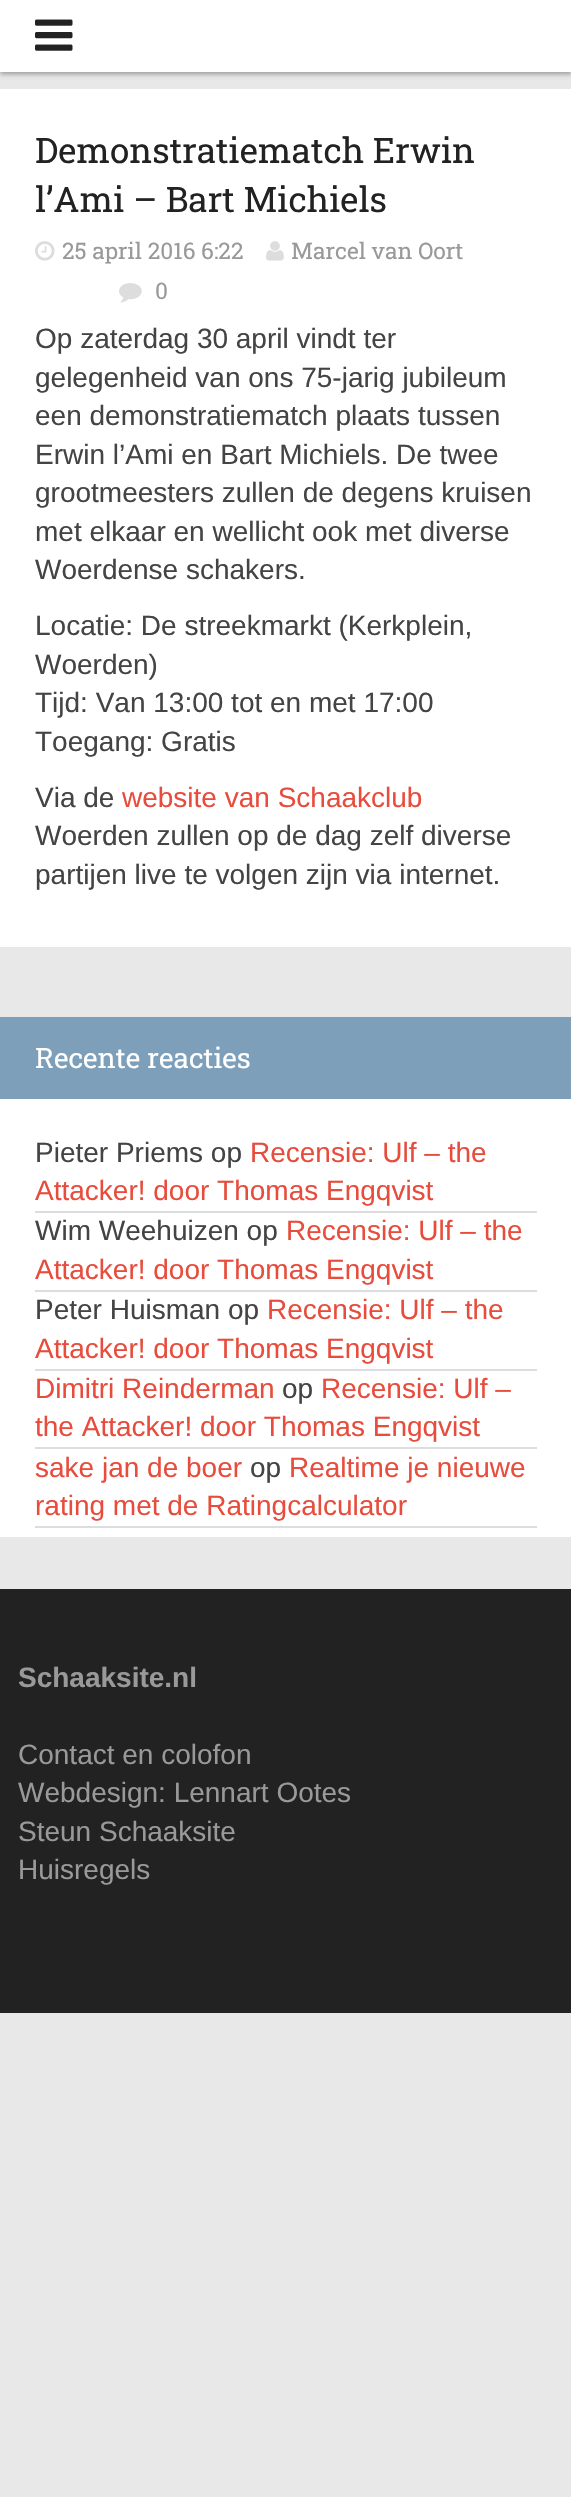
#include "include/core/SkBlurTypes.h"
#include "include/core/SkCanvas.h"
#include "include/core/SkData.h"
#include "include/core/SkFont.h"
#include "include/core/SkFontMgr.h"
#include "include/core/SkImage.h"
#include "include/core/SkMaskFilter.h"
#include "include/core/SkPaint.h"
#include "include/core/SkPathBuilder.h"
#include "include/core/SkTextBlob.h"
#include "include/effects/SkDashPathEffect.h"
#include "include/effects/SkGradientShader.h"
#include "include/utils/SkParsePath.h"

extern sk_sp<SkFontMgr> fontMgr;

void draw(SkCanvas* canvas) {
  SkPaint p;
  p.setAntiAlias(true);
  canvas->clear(SkColorSetRGB(233, 232, 232));
  p.setColor(SkColorSetARGB(89, 0, 0, 0));
  p.setMaskFilter(SkMaskFilter::MakeBlur(kNormal_SkBlurStyle, 2.5f));
  canvas->drawRect(SkRect::MakeLTRB(0, 2, 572, 74), p);
  p.setMaskFilter(nullptr);
  p.setColor(SK_ColorWHITE);
  canvas->drawRect(SkRect::MakeLTRB(0, 0, 571, 72), p);
  canvas->drawImageRect(SkImages::DeferredFromEncodedData(SkData::MakeFromFileName("images/1.png")), SkRect::MakeLTRB(35, 19, 73, 51), SkSamplingOptions());
  canvas->drawRect(SkRect::MakeLTRB(0, 89, 571, 947), p);
  canvas->drawImageRect(SkImages::DeferredFromEncodedData(SkData::MakeFromFileName("images/2.png")), SkRect::MakeLTRB(35, 241, 55, 261), SkSamplingOptions());
  canvas->drawImageRect(SkImages::DeferredFromEncodedData(SkData::MakeFromFileName("images/3.png")), SkRect::MakeLTRB(266, 241, 284, 261), SkSamplingOptions());
  canvas->drawImageRect(SkImages::DeferredFromEncodedData(SkData::MakeFromFileName("images/4.png")), SkRect::MakeLTRB(119, 283, 142, 303), SkSamplingOptions());
  canvas->drawRect(SkRect::MakeLTRB(0, 1099, 571, 1537), p);
  p.setColor(SkColorSetRGB(125, 159, 186));
  canvas->drawRect(SkRect::MakeLTRB(0, 1017, 571, 1099), p);
  p.setColor(SkColorSetRGB(221, 221, 221));
  canvas->drawRect(SkRect::MakeLTRB(35, 1211, 537, 1213), p);
  canvas->drawRect(SkRect::MakeLTRB(35, 1290, 537, 1292), p);
  canvas->drawRect(SkRect::MakeLTRB(35, 1369, 537, 1371), p);
  canvas->drawRect(SkRect::MakeLTRB(35, 1447, 537, 1449), p);
  canvas->drawRect(SkRect::MakeLTRB(35, 1526, 537, 1528), p);
  p.setColor(SkColorSetRGB(34, 34, 34));
  canvas->drawRect(SkRect::MakeLTRB(0, 1589, 571, 2013), p);
  SkFont font1(fontMgr->matchFamilyStyle("Roboto Slab", SkFontStyle::Normal()), 35);
  font1.setSubpixel(true);
  canvas->drawString("Demonstratiematch Erwin", 35, 163, font1, p);
  canvas->drawString("l’Ami – Bart Michiels", 35, 212, font1, p);
  SkFont font2(fontMgr->matchFamilyStyle("Roboto Slab", SkFontStyle::Normal()), 22.75f);
  font2.setSubpixel(true);
  p.setColor(SkColorSetRGB(153, 153, 153));
  canvas->drawString("25 april 2016 6:22", 62, 259, font2, p);
  canvas->drawString("Marcel van Oort", 291, 259, font2, p);
  canvas->drawString("0", 155, 299, font2, p);
  SkFont font3(fontMgr->matchFamilyStyle("Liberation Sans", SkFontStyle::Normal()), 28);
  font3.setSubpixel(true);
  p.setColor(SkColorSetRGB(68, 68, 68));
  canvas->drawString("Op zaterdag 30 april vindt ter", 35, 348, font3, p);
  canvas->drawString("gelegenheid van ons 75-jarig jubileum", 35, 387, font3, p);
  canvas->drawString("een demonstratiematch plaats tussen", 35, 425, font3, p);
  canvas->drawString("Erwin l’Ami en Bart Michiels. De twee", 35, 464, font3, p);
  canvas->drawString("grootmeesters zullen de degens kruisen", 35, 502, font3, p);
  canvas->drawString("met elkaar en wellicht ook met diverse", 35, 541, font3, p);
  canvas->drawString("Woerdense schakers.", 35, 579, font3, p);
  canvas->drawString("Locatie: De streekmarkt (Kerkplein,", 35, 635, font3, p);
  canvas->drawString("Woerden)", 35, 674, font3, p);
  canvas->drawString("Tijd: Van 13:00 tot en met 17:00", 35, 712, font3, p);
  canvas->drawString("Toegang: Gratis", 35, 751, font3, p);
  canvas->drawString("Via de", 35, 807, font3, p);
  p.setColor(SkColorSetRGB(231, 76, 60));
  canvas->drawString("website van Schaakclub", 122, 807, font3, p);
  p.setColor(SkColorSetRGB(68, 68, 68));
  canvas->drawString("Woerden zullen op de dag zelf diverse", 35, 845, font3, p);
  canvas->drawString("partijen live te volgen zijn via internet.", 35, 884, font3, p);
  SkFont font4(fontMgr->matchFamilyStyle("Roboto Slab", SkFontStyle::Normal()), 28);
  font4.setSubpixel(true);
  p.setColor(SK_ColorWHITE);
  canvas->drawString("Recente reacties", 35, 1068, font4, p);
  p.setColor(SkColorSetRGB(68, 68, 68));
  canvas->drawString("Pieter Priems op", 35, 1162, font3, p);
  p.setColor(SkColorSetRGB(231, 76, 60));
  canvas->drawString("Recensie: Ulf – the", 250, 1162, font3, p);
  canvas->drawString("Attacker! door Thomas Engqvist", 35, 1200, font3, p);
  p.setColor(SkColorSetRGB(68, 68, 68));
  canvas->drawString("Wim Weehuizen op", 35, 1240, font3, p);
  p.setColor(SkColorSetRGB(231, 76, 60));
  canvas->drawString("Recensie: Ulf – the", 286, 1240, font3, p);
  canvas->drawString("Attacker! door Thomas Engqvist", 35, 1279, font3, p);
  p.setColor(SkColorSetRGB(68, 68, 68));
  canvas->drawString("Peter Huisman op", 35, 1319, font3, p);
  p.setColor(SkColorSetRGB(231, 76, 60));
  canvas->drawString("Recensie: Ulf – the", 267, 1319, font3, p);
  canvas->drawString("Attacker! door Thomas Engqvist", 35, 1358, font3, p);
  canvas->drawString("Dimitri Reinderman", 35, 1398, font3, p);
  p.setColor(SkColorSetRGB(68, 68, 68));
  canvas->drawString("op", 282, 1398, font3, p);
  p.setColor(SkColorSetRGB(231, 76, 60));
  canvas->drawString("Recensie: Ulf –", 321, 1398, font3, p);
  canvas->drawString("the Attacker! door Thomas Engqvist", 35, 1436, font3, p);
  canvas->drawString("sake jan de boer", 35, 1477, font3, p);
  p.setColor(SkColorSetRGB(68, 68, 68));
  canvas->drawString("op", 250, 1477, font3, p);
  p.setColor(SkColorSetRGB(231, 76, 60));
  canvas->drawString("Realtime je nieuwe", 289, 1477, font3, p);
  canvas->drawString("rating met de Ratingcalculator", 35, 1515, font3, p);
  SkFont font5(fontMgr->matchFamilyStyle("Liberation Sans", SkFontStyle::Bold()), 28);
  font5.setSubpixel(true);
  p.setColor(SkColorSetRGB(153, 153, 153));
  canvas->drawString("Schaaksite.nl", 18, 1687, font5, p);
  canvas->drawString("Contact en colofon", 18, 1764, font3, p);
  canvas->drawString("Webdesign: Lennart Ootes", 18, 1802, font3, p);
  canvas->drawString("Steun Schaaksite", 18, 1841, font3, p);
  canvas->drawString("Huisregels", 18, 1879, font3, p);
}
